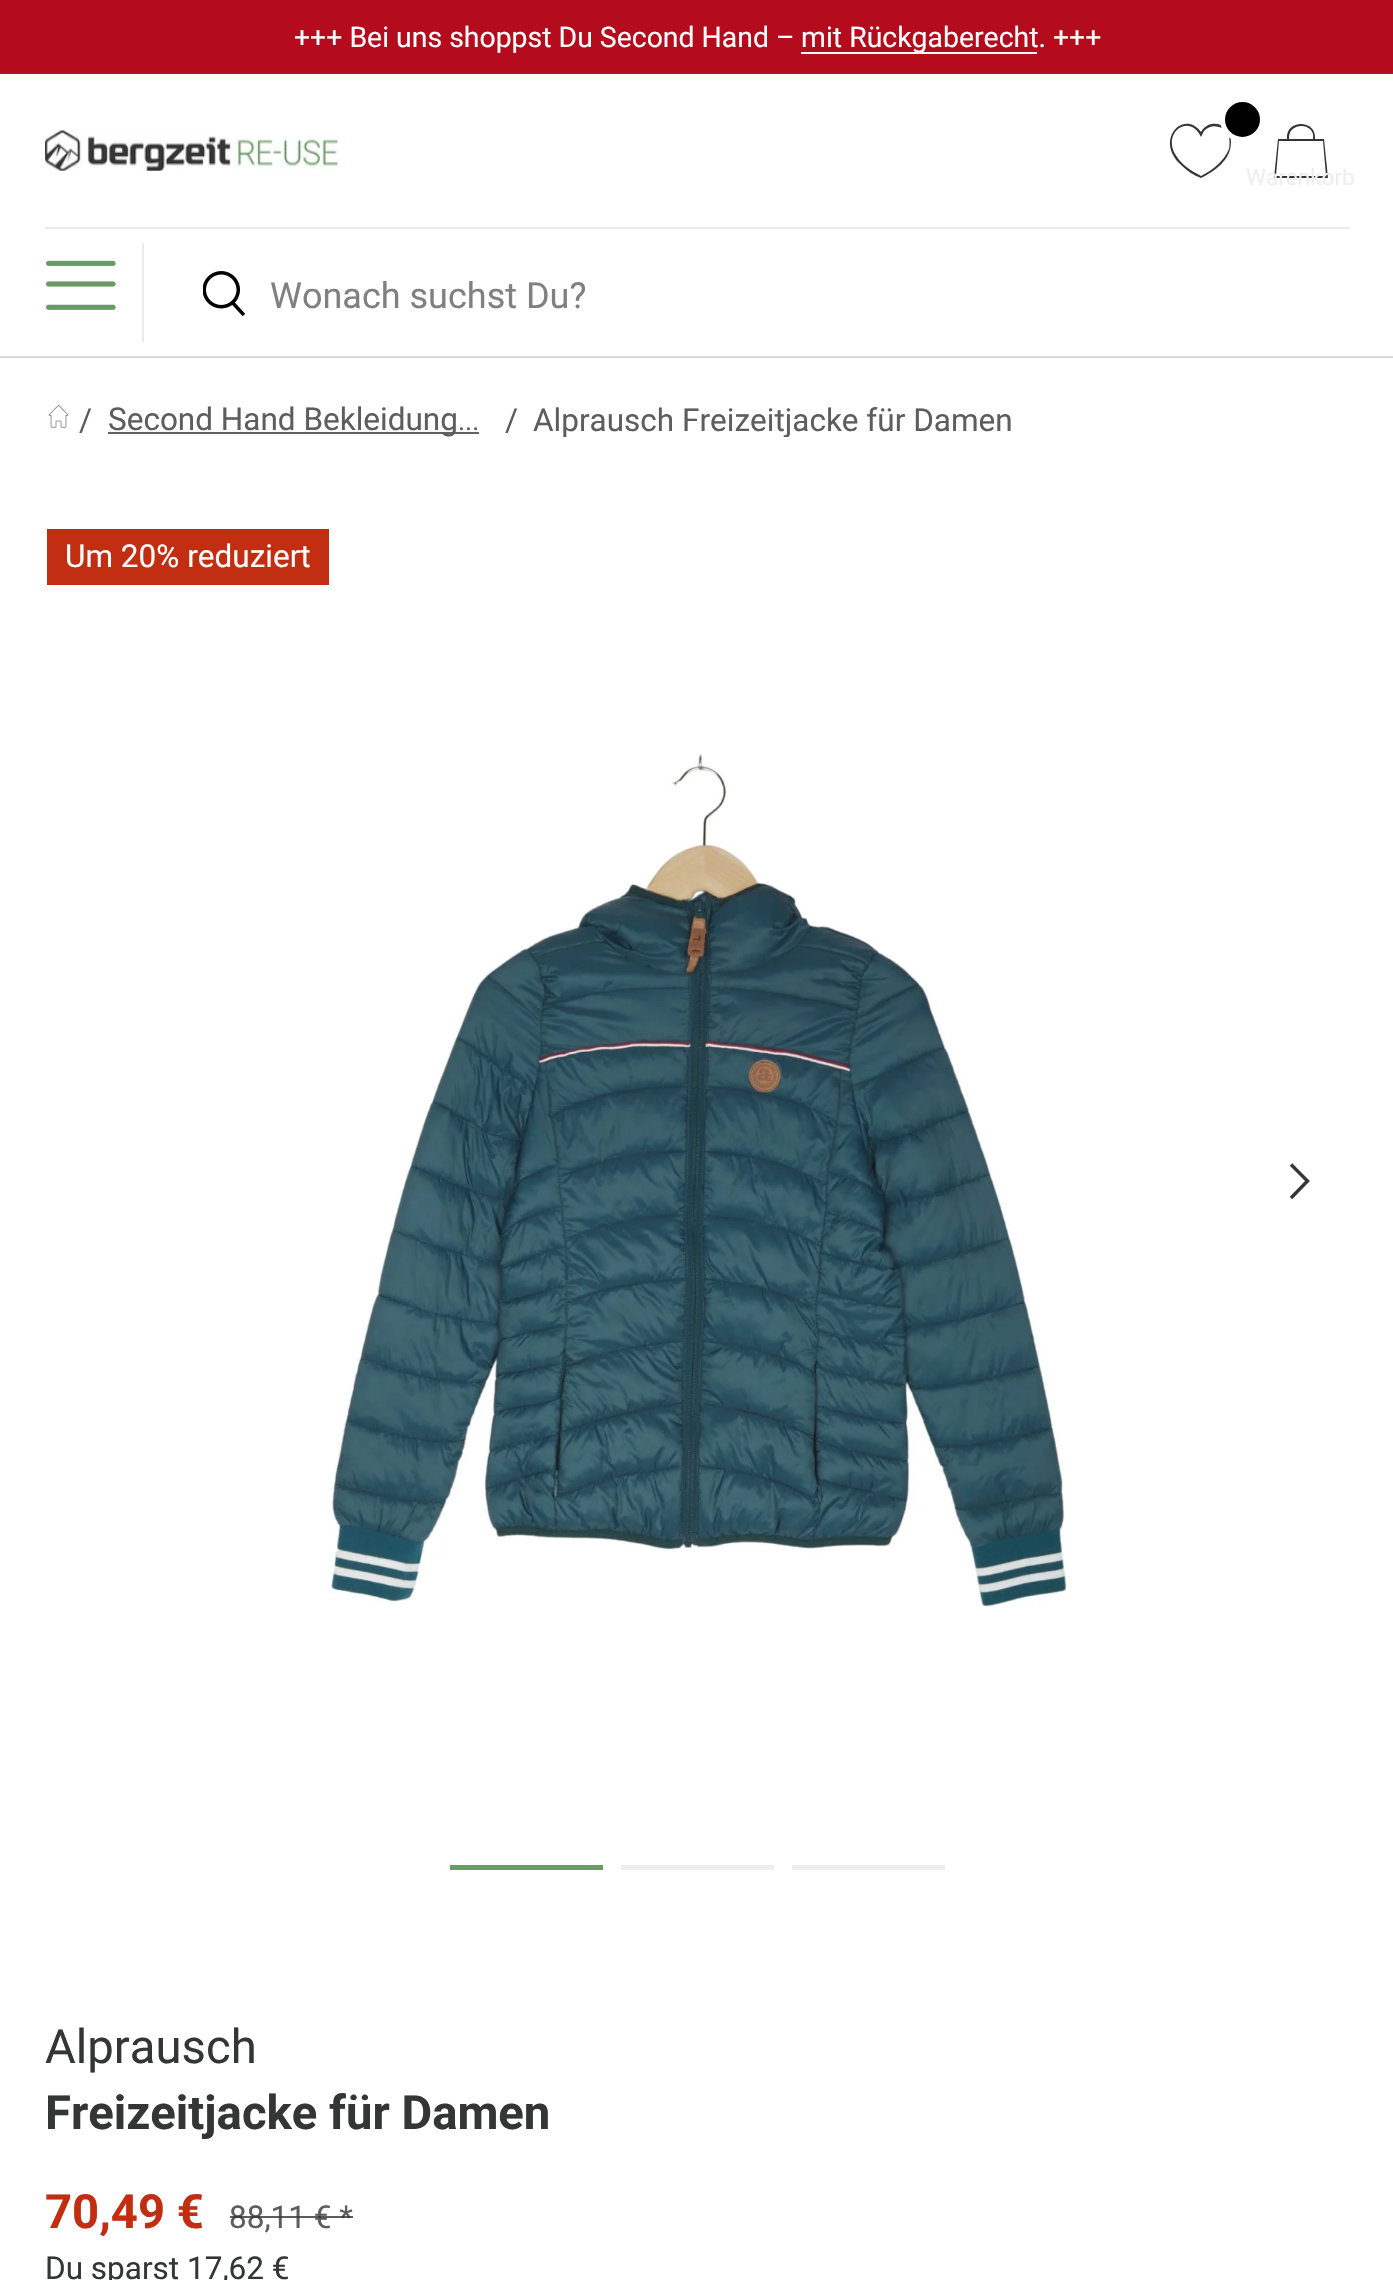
#include "include/core/SkBlurTypes.h"
#include "include/core/SkCanvas.h"
#include "include/core/SkData.h"
#include "include/core/SkFont.h"
#include "include/core/SkFontMgr.h"
#include "include/core/SkImage.h"
#include "include/core/SkMaskFilter.h"
#include "include/core/SkPaint.h"
#include "include/core/SkPathBuilder.h"
#include "include/core/SkTextBlob.h"
#include "include/effects/SkDashPathEffect.h"
#include "include/effects/SkGradientShader.h"
#include "include/utils/SkParsePath.h"

extern sk_sp<SkFontMgr> fontMgr;

void draw(SkCanvas* canvas) {
  SkPaint p;
  p.setAntiAlias(true);
  canvas->clear(SK_ColorWHITE);
  p.setColor(SkColorSetRGB(180, 12, 28));
  canvas->drawRect(SkRect::MakeLTRB(0, 0, 1393, 74), p);
  p.setColor(SK_ColorWHITE);
  canvas->drawRect(SkRect::MakeLTRB(801, 52, 1037, 54), p);
  p.setColor(SkColorSetRGB(217, 217, 217));
  canvas->drawRect(SkRect::MakeLTRB(0, 356, 1393, 358), p);
  canvas->drawImageRect(SkImages::DeferredFromEncodedData(SkData::MakeFromFileName("images/1.png")), SkRect::MakeLTRB(45, 130, 338, 171), SkSamplingOptions());
  p.setColor(SkColorSetRGB(52, 53, 53));
  canvas->drawPath(SkPathBuilder().moveTo(1231, 142).cubicTo(1232, 125, 1210, 116, 1201, 132).cubicTo(1185, 109, 1154, 138, 1180, 164).cubicTo(1186, 170, 1193, 175, 1201, 178).cubicTo(1215, 171, 1231, 160, 1231, 142).close().moveTo(1229, 149).cubicTo(1224, 161, 1213, 170, 1201, 176).cubicTo(1192, 171, 1183, 166, 1177, 157).cubicTo(1160, 133, 1190, 112, 1201, 137).lineTo(1204, 131).cubicTo(1210, 124, 1221, 125, 1227, 132).cubicTo(1230, 137, 1230, 144, 1229, 149).close().detach(), p);
  p.setColor(SK_ColorBLACK);
  canvas->drawCircle(1242.5f, 119.5f, 20, p);
  p.setStyle(SkPaint::kStroke_Style);
  p.setStrokeWidth(5);
  p.setColor(SK_ColorWHITE);
  canvas->drawCircle(1242.5f, 119.5f, 20, p);
  p.setStyle(SkPaint::kFill_Style);
  p.setColor(SkColorSetRGB(52, 53, 53));
  canvas->drawPath(SkPathBuilder().moveTo(1324, 139).lineTo(1315, 139).cubicTo(1317, 119, 1285, 119, 1287, 139).lineTo(1278, 139).lineTo(1274, 178).lineTo(1328, 178).close().moveTo(1289, 138).cubicTo(1289, 121, 1316, 123, 1313, 139).lineTo(1289, 139).close().moveTo(1279, 141).lineTo(1323, 141).lineTo(1326, 176).lineTo(1276, 176).close().detach(), p);
  p.setColor(SkColorSetRGB(234, 234, 234));
  canvas->drawRect(SkRect::MakeLTRB(45, 227, 1350, 229), p);
  canvas->drawRect(SkRect::MakeLTRB(142, 243, 144, 342), p);
  canvas->drawImageRect(SkImages::DeferredFromEncodedData(SkData::MakeFromFileName("images/2.png")), SkRect::MakeLTRB(46, 260, 116, 310), SkSamplingOptions());
  canvas->drawImageRect(SkImages::DeferredFromEncodedData(SkData::MakeFromFileName("images/3.png")), SkRect::MakeLTRB(203, 271, 246, 317), SkSamplingOptions());
  canvas->drawImageRect(SkImages::DeferredFromEncodedData(SkData::MakeFromFileName("images/4.png")), SkRect::MakeLTRB(48, 405, 69, 428), SkSamplingOptions());
  p.setColor(SkColorSetRGB(98, 98, 97));
  canvas->drawRect(SkRect::MakeLTRB(108, 432, 479, 434), p);
  p.setColor(SkColorSetRGB(194, 46, 18));
  canvas->drawRect(SkRect::MakeLTRB(47, 529, 329, 585), p);
  canvas->drawImageRect(SkImages::DeferredFromEncodedData(SkData::MakeFromFileName("images/5.png")), SkRect::MakeLTRB(328, 753, 1067, 1609), SkSamplingOptions());
  p.setStyle(SkPaint::kStroke_Style);
  p.setStrokeWidth(3.4f);
  p.setColor(SkColorSetRGB(52, 53, 53));
  canvas->drawPath(SkPathBuilder().moveTo(1291, 1164.5f).lineTo(1307.5f, 1181).lineTo(1291, 1198).detach(), p);
  p.setStyle(SkPaint::kFill_Style);
  p.setColor(SkColorSetRGB(107, 153, 104));
  canvas->drawRect(SkRect::MakeLTRB(450, 1865, 603, 1870), p);
  p.setColor(SkColorSetRGB(238, 238, 238));
  canvas->drawRect(SkRect::MakeLTRB(621, 1865, 774, 1870), p);
  canvas->drawRect(SkRect::MakeLTRB(792, 1865, 945, 1870), p);
  SkFont font1(fontMgr->matchFamilyStyle("Roboto", SkFontStyle::Normal()), 28.4f);
  font1.setSubpixel(true);
  p.setColor(SK_ColorWHITE);
  canvas->drawString("+++ Bei uns shoppst Du Second Hand –", 294, 47, font1, p);
  canvas->drawString("mit Rückgaberecht. +++", 801, 47, font1, p);
  SkFont font2(fontMgr->matchFamilyStyle("Roboto", SkFontStyle::Normal()), 22.5f);
  font2.setSubpixel(true);
  p.setColor(SkColorSetRGB(238, 238, 238));
  canvas->drawString("Warenkorb", 1246, 185, font2, p);
  SkFont font3(fontMgr->matchFamilyStyle("Roboto", SkFontStyle::Normal()), 36);
  font3.setSubpixel(true);
  p.setColor(SkColorSetRGB(128, 128, 128));
  canvas->drawString("Wonach suchst Du?", 270, 308, font3, p);
  SkFont font4(fontMgr->matchFamilyStyle("Roboto", SkFontStyle::Normal()), 31.5f);
  font4.setSubpixel(true);
  p.setColor(SkColorSetRGB(93, 93, 93));
  canvas->drawString("/", 79, 431, font4, p);
  canvas->drawString("Second Hand Bekleidung", 108, 430, font4, p);
  SkFont font5(fontMgr->matchFamilyStyle("Roboto", SkFontStyle::Normal()), 27);
  font5.setSubpixel(true);
  canvas->drawString("...", 458, 430, font5, p);
  canvas->drawString("/", 505, 431, font4, p);
  canvas->save();
  canvas->clipRect(SkRect::MakeLTRB(533, 405, 1013, 437));
  canvas->drawString("Alprausch Freizeitjacke für Damen", 533, 431, font4, p);
  canvas->restore();
  p.setColor(SK_ColorWHITE);
  canvas->drawString("Um 20% reduziert", 65, 567, font4, p);
  SkFont font6(fontMgr->matchFamilyStyle("Roboto", SkFontStyle::Normal()), 47.25f);
  font6.setSubpixel(true);
  p.setColor(SkColorSetRGB(52, 53, 53));
  canvas->drawString("Alprausch", 45, 2063, font6, p);
  SkFont font7(fontMgr->matchFamilyStyle("Roboto", SkFontStyle::Bold()), 47.25f);
  font7.setSubpixel(true);
  canvas->drawString("Freizeitjacke für Damen", 45, 2129, font7, p);
  p.setColor(SkColorSetRGB(194, 46, 18));
  canvas->drawString("70,49 €", 45, 2228, font7, p);
  p.setColor(SkColorSetRGB(93, 93, 93));
  canvas->drawString("88,11 € *", 229, 2228, font4, p);
  p.setColor(SkColorSetARGB(204, 52, 53, 53));
  canvas->drawRect(SkRect::MakeLTRB(230, 2216, 353, 2218), p);
  p.setColor(SkColorSetRGB(52, 53, 53));
  canvas->drawString("Du sparst 17,62 €", 45, 2279, font4, p);
}
